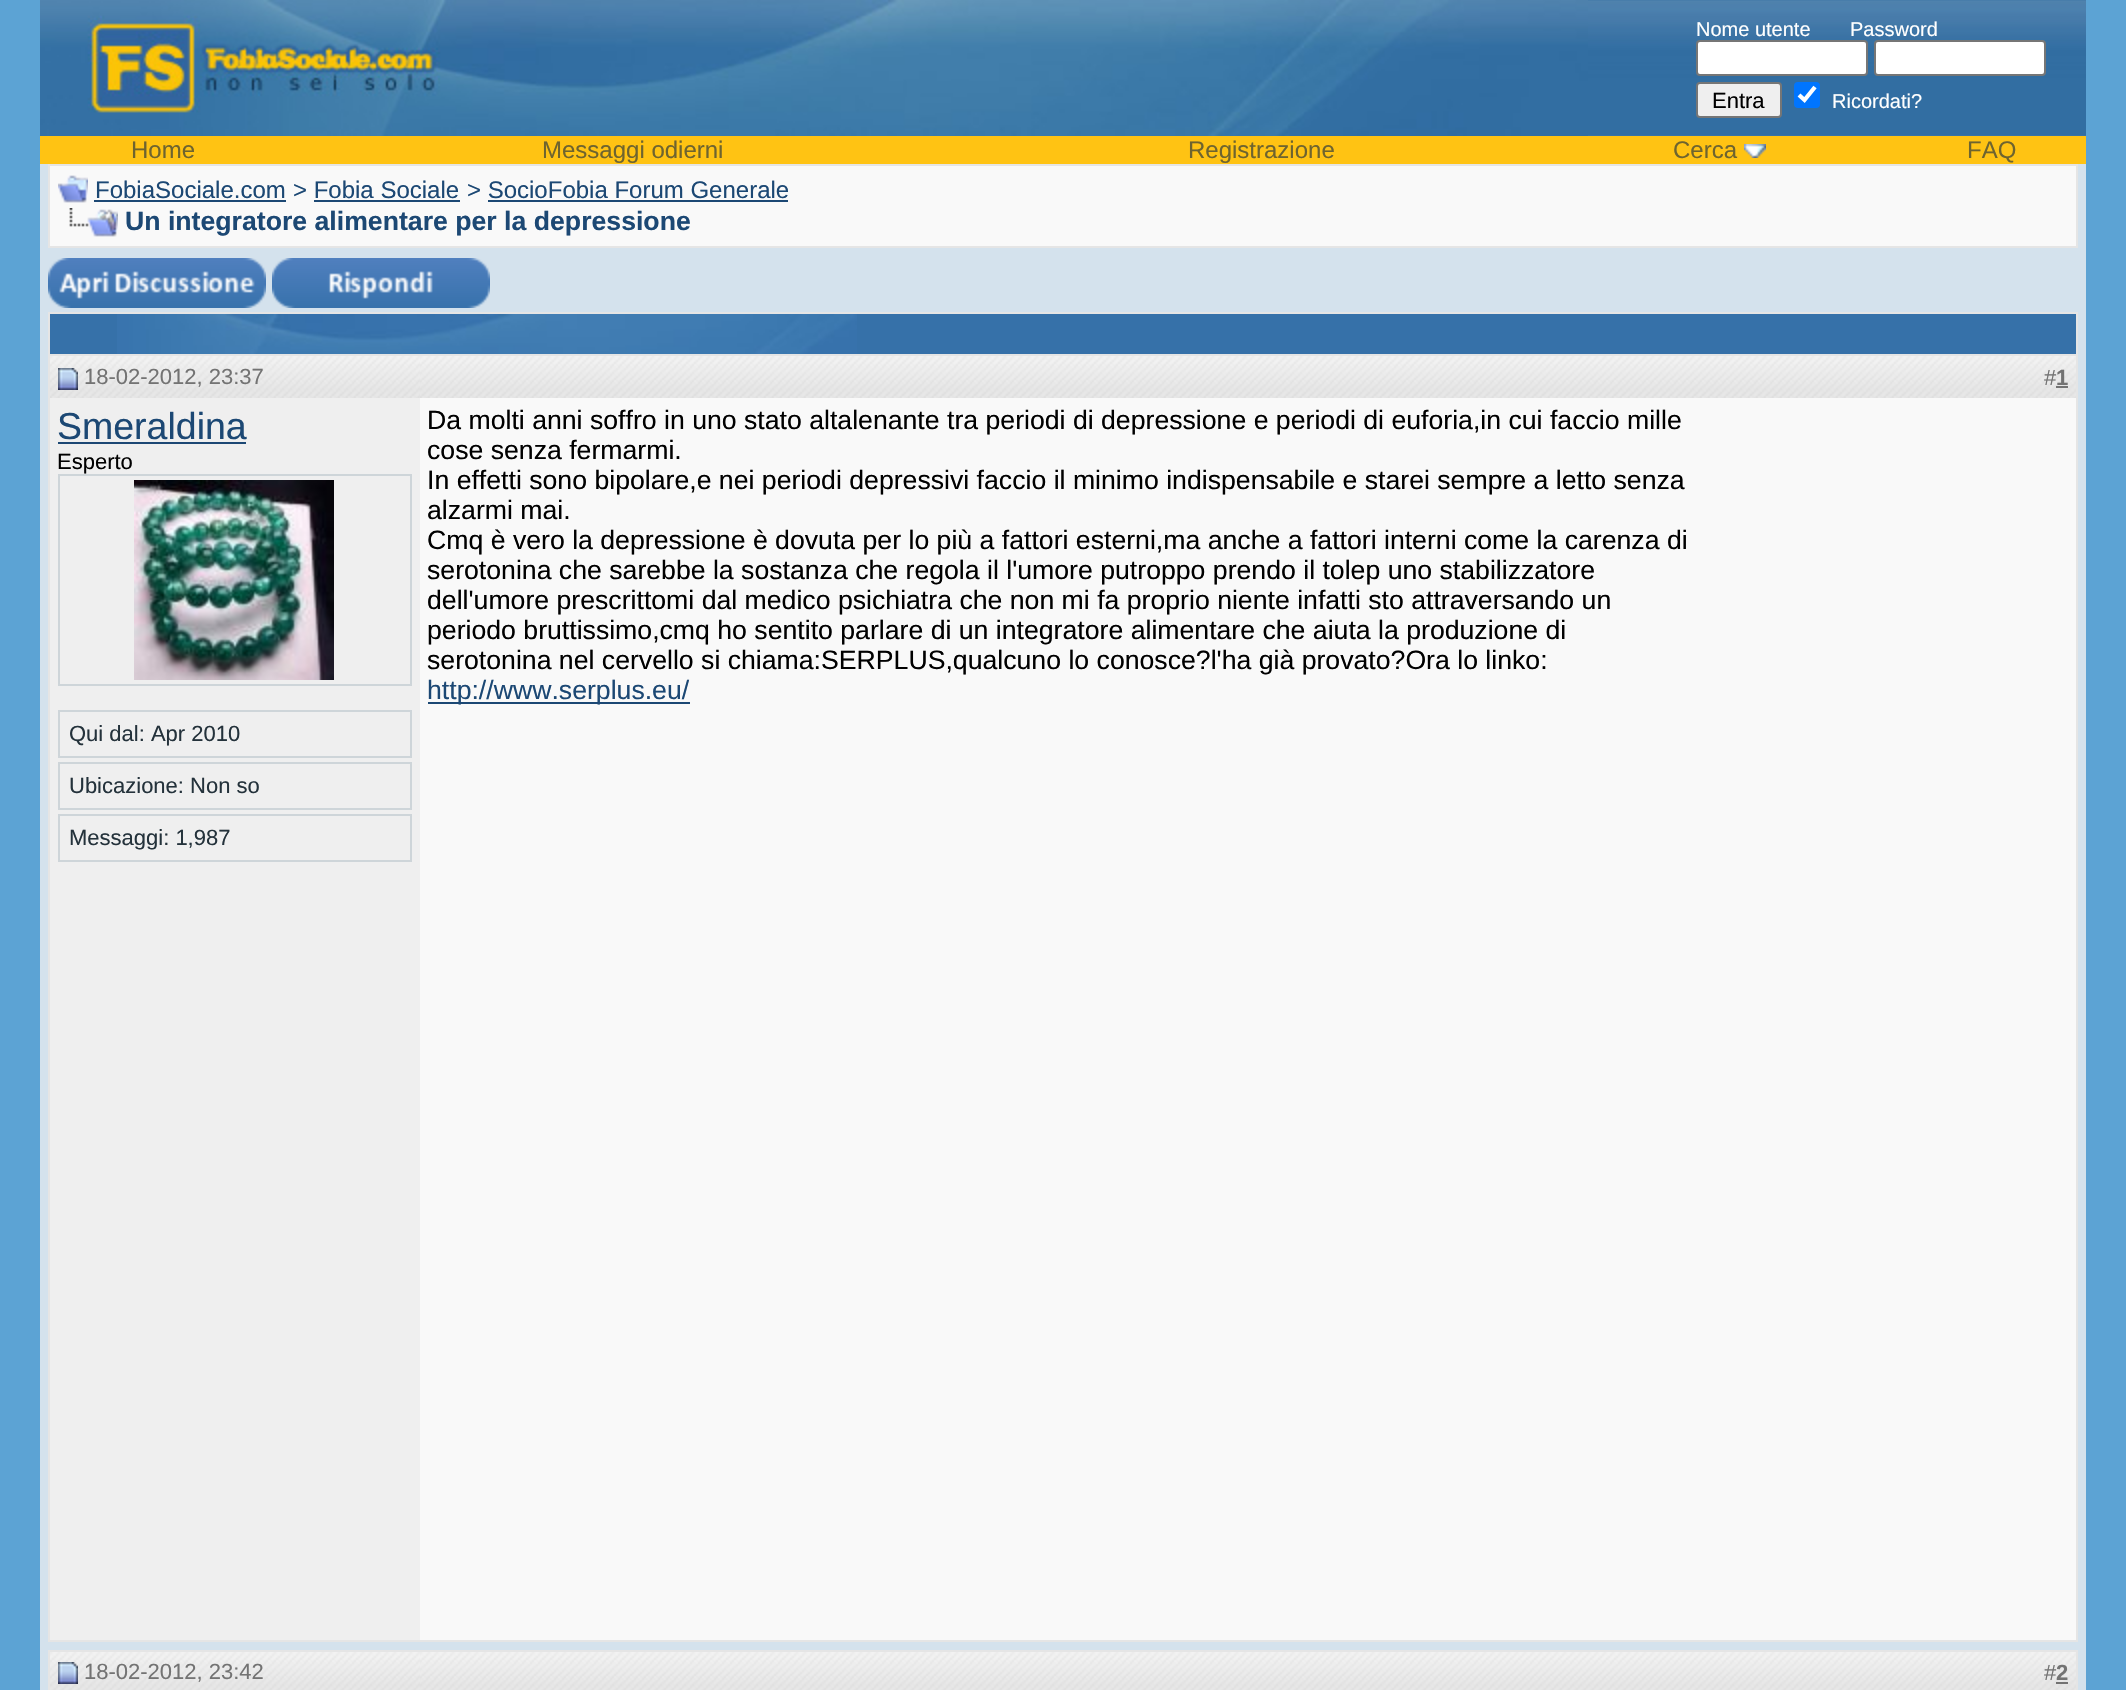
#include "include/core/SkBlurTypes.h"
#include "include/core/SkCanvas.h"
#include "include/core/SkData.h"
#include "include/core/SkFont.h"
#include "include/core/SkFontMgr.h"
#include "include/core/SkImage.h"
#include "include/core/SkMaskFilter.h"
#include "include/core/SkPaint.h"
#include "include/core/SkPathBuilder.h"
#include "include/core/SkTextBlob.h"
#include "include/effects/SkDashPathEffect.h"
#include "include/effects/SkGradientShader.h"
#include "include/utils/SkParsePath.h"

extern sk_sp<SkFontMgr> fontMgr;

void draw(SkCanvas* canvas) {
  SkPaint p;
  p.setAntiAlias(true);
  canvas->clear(SkColorSetRGB(92, 163, 212));
  p.setColor(SkColorSetRGB(212, 226, 237));
  canvas->drawRect(SkRect::MakeLTRB(40, 164, 2086, 1690), p);
  canvas->drawImageRect(SkImages::DeferredFromEncodedData(SkData::MakeFromFileName("images/1.png")), SkRect::MakeLTRB(1588, 0, 2086, 136), SkSamplingOptions());
  canvas->drawImageRect(SkImages::DeferredFromEncodedData(SkData::MakeFromFileName("images/2.png")), SkRect::MakeLTRB(40, 0, 1588, 136), SkSamplingOptions());
  p.setColor(SK_ColorWHITE);
  canvas->drawRoundRect(SkRect::MakeLTRB(1697, 41, 1867, 75), 3, 3, p);
  p.setStyle(SkPaint::kStroke_Style);
  p.setStrokeWidth(2);
  p.setColor(SkColorSetRGB(118, 118, 118));
  canvas->drawRoundRect(SkRect::MakeLTRB(1697, 41, 1867, 75), 3, 3, p);
  p.setStyle(SkPaint::kFill_Style);
  p.setColor(SK_ColorWHITE);
  canvas->drawRoundRect(SkRect::MakeLTRB(1875, 41, 2045, 75), 3, 3, p);
  p.setStyle(SkPaint::kStroke_Style);
  p.setColor(SkColorSetRGB(118, 118, 118));
  canvas->drawRoundRect(SkRect::MakeLTRB(1875, 41, 2045, 75), 3, 3, p);
  p.setStyle(SkPaint::kFill_Style);
  p.setColor(SkColorSetRGB(239, 239, 239));
  canvas->drawRoundRect(SkRect::MakeLTRB(1697, 83, 1781, 117), 3, 3, p);
  p.setStyle(SkPaint::kStroke_Style);
  p.setColor(SkColorSetRGB(118, 118, 118));
  canvas->drawRoundRect(SkRect::MakeLTRB(1697, 83, 1781, 117), 3, 3, p);
  p.setStyle(SkPaint::kFill_Style);
  p.setColor(SkColorSetRGB(0, 117, 255));
  canvas->drawRoundRect(SkRect::MakeLTRB(1794, 82, 1820, 108), 4, 4, p);
  p.setStyle(SkPaint::kStroke_Style);
  p.setStrokeWidth(4.2f);
  p.setColor(SK_ColorWHITE);
  canvas->drawPath(SkPathBuilder().moveTo(1799, 95).lineTo(1804.5f, 100).lineTo(1815, 87).detach(), p);
  p.setStyle(SkPaint::kFill_Style);
  p.setColor(SkColorSetRGB(255, 195, 19));
  canvas->drawRect(SkRect::MakeLTRB(40, 136, 2086, 164), p);
  canvas->drawImageRect(SkImages::DeferredFromEncodedData(SkData::MakeFromFileName("images/3.png")), SkRect::MakeLTRB(1744, 144, 1766, 158), SkSamplingOptions());
  p.setStyle(SkPaint::kStroke_Style);
  p.setStrokeWidth(2);
  p.setColor(SkColorSetRGB(229, 229, 229));
  canvas->drawRect(SkRect::MakeLTRB(49, 165, 2077, 247), p);
  p.setStyle(SkPaint::kFill_Style);
  p.setColor(SkColorSetRGB(249, 249, 249));
  canvas->drawRect(SkRect::MakeLTRB(50, 166, 2076, 246), p);
  canvas->drawImageRect(SkImages::DeferredFromEncodedData(SkData::MakeFromFileName("images/4.png")), SkRect::MakeLTRB(58, 175, 88, 203), SkSamplingOptions());
  p.setColor(SkColorSetRGB(28, 72, 116));
  canvas->drawRect(SkRect::MakeLTRB(94, 200, 286, 202), p);
  canvas->drawRect(SkRect::MakeLTRB(314, 200, 460, 202), p);
  canvas->drawRect(SkRect::MakeLTRB(488, 200, 788, 202), p);
  canvas->drawImageRect(SkImages::DeferredFromEncodedData(SkData::MakeFromFileName("images/5.png")), SkRect::MakeLTRB(69, 208, 118, 237), SkSamplingOptions());
  canvas->drawImageRect(SkImages::DeferredFromEncodedData(SkData::MakeFromFileName("images/6.png")), SkRect::MakeLTRB(48, 258, 266, 308), SkSamplingOptions());
  canvas->drawImageRect(SkImages::DeferredFromEncodedData(SkData::MakeFromFileName("images/7.png")), SkRect::MakeLTRB(272, 258, 490, 308), SkSamplingOptions());
  p.setColor(SkColorSetRGB(54, 113, 169));
  canvas->drawRect(SkRect::MakeLTRB(50, 314, 2076, 354), p);
  p.setColor(SkColorSetRGB(229, 229, 229));
  canvas->drawRect(SkRect::MakeLTRB(48, 312, 2078, 314), p);
  canvas->drawRect(SkRect::MakeLTRB(2076, 312, 2078, 354), p);
  canvas->drawRect(SkRect::MakeLTRB(48, 312, 50, 354), p);
  canvas->drawImageRect(SkImages::DeferredFromEncodedData(SkData::MakeFromFileName("images/8.png")), SkRect::MakeLTRB(117, 314, 857, 354), SkSamplingOptions());
  p.setStyle(SkPaint::kStroke_Style);
  canvas->drawRect(SkRect::MakeLTRB(49, 355, 2077, 1641), p);
  canvas->drawImageRect(SkImages::DeferredFromEncodedData(SkData::MakeFromFileName("images/9.png")), SkRect::MakeLTRB(50, 356, 420, 398), SkSamplingOptions());
  canvas->drawImageRect(SkImages::DeferredFromEncodedData(SkData::MakeFromFileName("images/10.png")), SkRect::MakeLTRB(58, 368, 78, 390), SkSamplingOptions());
  canvas->drawImageRect(SkImages::DeferredFromEncodedData(SkData::MakeFromFileName("images/11.png")), SkRect::MakeLTRB(420, 356, 2076, 398), SkSamplingOptions());
  p.setStyle(SkPaint::kFill_Style);
  p.setColor(SkColorSetRGB(115, 115, 115));
  canvas->drawRect(SkRect::MakeLTRB(2056, 386, 2068, 388), p);
  p.setColor(SkColorSetRGB(239, 239, 239));
  canvas->drawRect(SkRect::MakeLTRB(50, 398, 420, 1640), p);
  p.setColor(SkColorSetRGB(28, 72, 116));
  canvas->drawRect(SkRect::MakeLTRB(58, 442, 246, 444), p);
  p.setStyle(SkPaint::kStroke_Style);
  p.setColor(SkColorSetRGB(206, 213, 217));
  canvas->drawRect(SkRect::MakeLTRB(59, 475, 411, 685), p);
  canvas->drawImageRect(SkImages::DeferredFromEncodedData(SkData::MakeFromFileName("images/12.png")), SkRect::MakeLTRB(134, 480, 334, 680), SkSamplingOptions());
  canvas->drawRect(SkRect::MakeLTRB(59, 711, 411, 757), p);
  canvas->drawRect(SkRect::MakeLTRB(59, 763, 411, 809), p);
  canvas->drawRect(SkRect::MakeLTRB(59, 815, 411, 861), p);
  p.setStyle(SkPaint::kFill_Style);
  p.setColor(SkColorSetRGB(249, 249, 249));
  canvas->drawRect(SkRect::MakeLTRB(420, 398, 2076, 1640), p);
  p.setColor(SkColorSetRGB(28, 72, 116));
  canvas->drawRect(SkRect::MakeLTRB(428, 702, 690, 704), p);
  p.setStyle(SkPaint::kStroke_Style);
  p.setColor(SkColorSetRGB(229, 229, 229));
  canvas->drawRect(SkRect::MakeLTRB(49, 1651, 2077, 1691), p);
  canvas->drawImageRect(SkImages::DeferredFromEncodedData(SkData::MakeFromFileName("images/13.png")), SkRect::MakeLTRB(50, 1652, 420, 1690), SkSamplingOptions());
  canvas->drawImageRect(SkImages::DeferredFromEncodedData(SkData::MakeFromFileName("images/14.png")), SkRect::MakeLTRB(58, 1662, 78, 1684), SkSamplingOptions());
  canvas->drawImageRect(SkImages::DeferredFromEncodedData(SkData::MakeFromFileName("images/15.png")), SkRect::MakeLTRB(420, 1652, 2076, 1690), SkSamplingOptions());
  p.setStyle(SkPaint::kFill_Style);
  p.setColor(SkColorSetRGB(115, 115, 115));
  canvas->drawRect(SkRect::MakeLTRB(2056, 1682, 2068, 1684), p);
  SkFont font1(fontMgr->matchFamilyStyle("Liberation Sans", SkFontStyle::Normal()), 20);
  font1.setSubpixel(true);
  p.setColor(SK_ColorWHITE);
  canvas->drawString("Nome utente", 1696, 36, font1, p);
  canvas->drawString("Password", 1850, 36, font1, p);
  SkFont font2(fontMgr->matchFamilyStyle("Liberation Sans", SkFontStyle::Normal()), 22);
  font2.setSubpixel(true);
  p.setColor(SK_ColorBLACK);
  canvas->drawString("Entra", 1712, 108, font2, p);
  p.setColor(SK_ColorWHITE);
  canvas->drawString("Ricordati?", 1832, 108, font1, p);
  SkFont font3(fontMgr->matchFamilyStyle("Liberation Sans", SkFontStyle::Normal()), 24);
  font3.setSubpixel(true);
  p.setColor(SkColorSetRGB(110, 100, 47));
  canvas->drawString("Home", 131, 158, font3, p);
  canvas->drawString("Messaggi odierni", 542, 158, font3, p);
  canvas->drawString("Registrazione", 1188, 158, font3, p);
  canvas->drawString("Cerca", 1673, 158, font3, p);
  canvas->drawString("FAQ", 1967, 158, font3, p);
  p.setColor(SkColorSetRGB(28, 72, 116));
  canvas->drawString("FobiaSociale.com", 95, 198, font3, p);
  canvas->drawString("> Fobia Sociale", 293, 198, font3, p);
  canvas->drawString("> SocioFobia Forum Generale", 467, 198, font3, p);
  SkFont font4(fontMgr->matchFamilyStyle("Liberation Sans", SkFontStyle::Bold()), 26.65f);
  font4.setSubpixel(true);
  canvas->drawString("Un integratore alimentare per la depressione", 125, 230, font4, p);
  p.setColor(SkColorSetRGB(115, 115, 115));
  canvas->drawString("18-02-2012, 23:37", 84, 384, font2, p);
  canvas->drawString("#", 2044, 385, font2, p);
  SkFont font5(fontMgr->matchFamilyStyle("Liberation Sans", SkFontStyle::Bold()), 22);
  font5.setSubpixel(true);
  canvas->drawString("1", 2056, 385, font5, p);
  SkFont font6(fontMgr->matchFamilyStyle("Liberation Sans", SkFontStyle::Normal()), 37.5f);
  font6.setSubpixel(true);
  p.setColor(SkColorSetRGB(28, 72, 116));
  canvas->drawString("Smeraldina", 57, 439, font6, p);
  p.setColor(SK_ColorBLACK);
  canvas->drawString("Esperto", 57, 469, font2, p);
  p.setColor(SkColorSetRGB(36, 50, 59));
  canvas->drawString("Qui dal: Apr 2010", 69, 741, font2, p);
  canvas->drawString("Ubicazione: Non so", 69, 793, font2, p);
  canvas->drawString("Messaggi: 1,987", 69, 845, font2, p);
  SkFont font7(fontMgr->matchFamilyStyle("Liberation Sans", SkFontStyle::Normal()), 26.65f);
  font7.setSubpixel(true);
  p.setColor(SK_ColorBLACK);
  canvas->drawString("Da molti anni soffro in uno stato altalenante tra periodi di depressione e periodi di euforia,in cui faccio mille", 427, 429, font7, p);
  canvas->drawString("cose senza fermarmi.", 427, 459, font7, p);
  canvas->drawString("In effetti sono bipolare,e nei periodi depressivi faccio il minimo indispensabile e starei sempre a letto senza", 427, 489, font7, p);
  canvas->drawString("alzarmi mai.", 427, 519, font7, p);
  canvas->drawString("Cmq è vero la depressione è dovuta per lo più a fattori esterni,ma anche a fattori interni come la carenza di", 427, 549, font7, p);
  canvas->drawString("serotonina che sarebbe la sostanza che regola il l'umore putroppo prendo il tolep uno stabilizzatore", 427, 579, font7, p);
  canvas->drawString("dell'umore prescrittomi dal medico psichiatra che non mi fa proprio niente infatti sto attraversando un", 427, 609, font7, p);
  canvas->drawString("periodo bruttissimo,cmq ho sentito parlare di un integratore alimentare che aiuta la produzione di", 427, 639, font7, p);
  canvas->drawString("serotonina nel cervello si chiama:SERPLUS,qualcuno lo conosce?l'ha già provato?Ora lo linko:", 427, 669, font7, p);
  p.setColor(SkColorSetRGB(28, 72, 116));
  canvas->drawString("http://www.serplus.eu/", 427, 699, font7, p);
  p.setColor(SkColorSetRGB(115, 115, 115));
  canvas->drawString("18-02-2012, 23:42", 84, 1679, font2, p);
  canvas->drawString("#", 2044, 1680, font2, p);
  canvas->drawString("2", 2056, 1680, font5, p);
}
